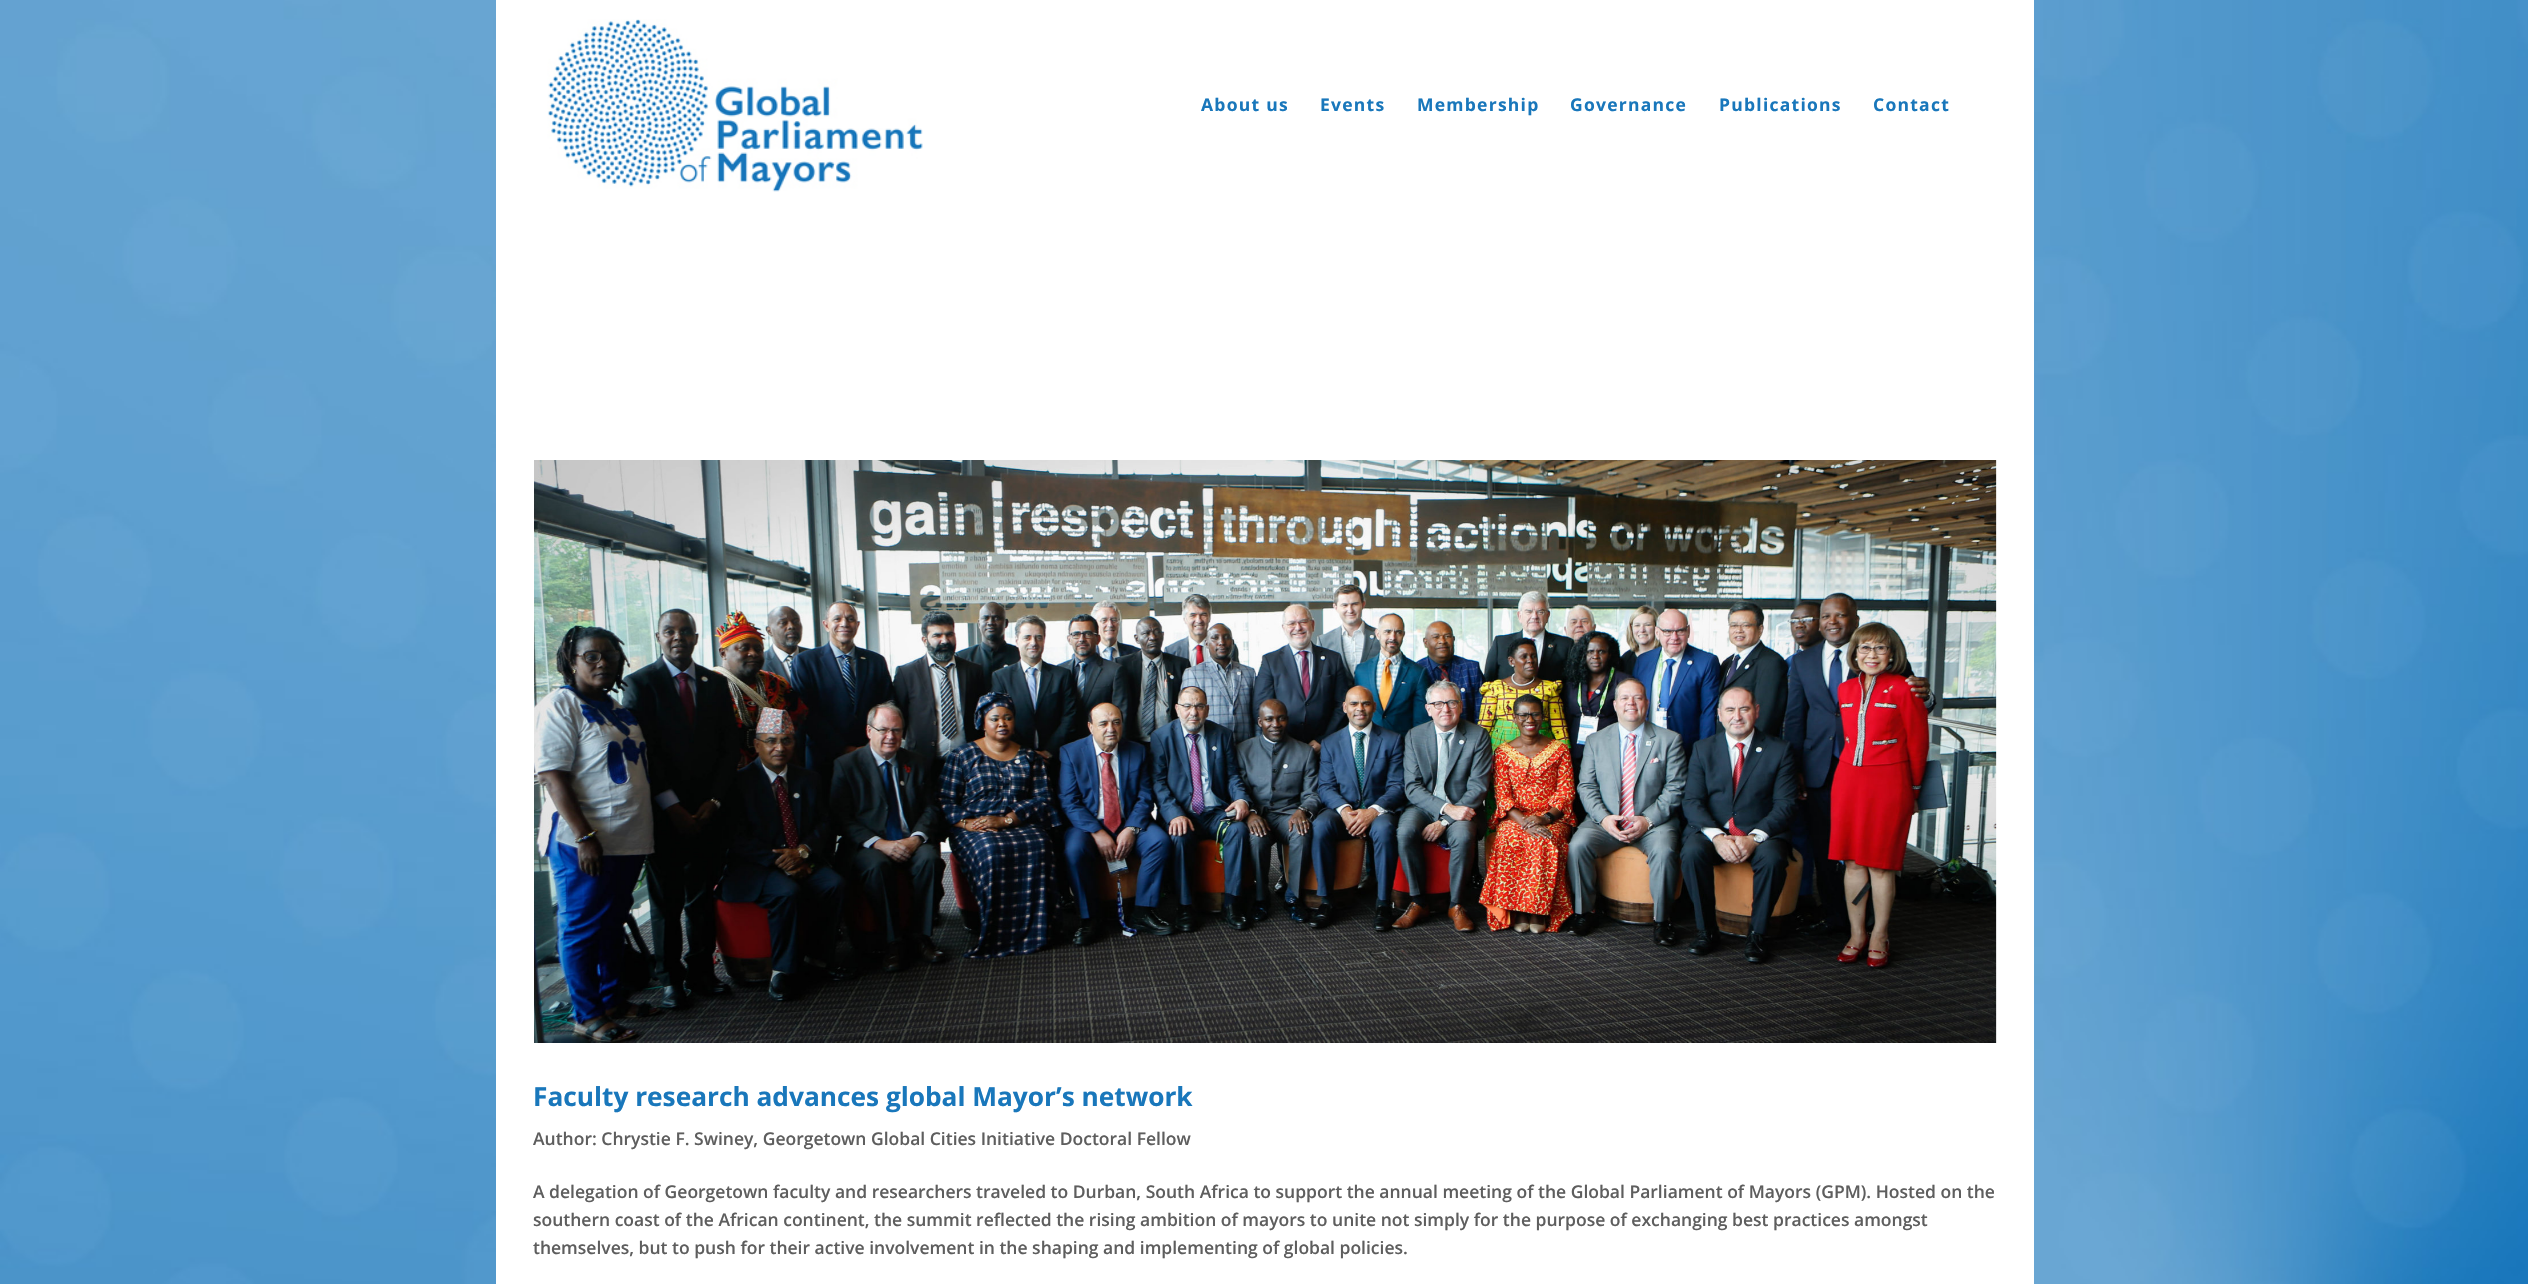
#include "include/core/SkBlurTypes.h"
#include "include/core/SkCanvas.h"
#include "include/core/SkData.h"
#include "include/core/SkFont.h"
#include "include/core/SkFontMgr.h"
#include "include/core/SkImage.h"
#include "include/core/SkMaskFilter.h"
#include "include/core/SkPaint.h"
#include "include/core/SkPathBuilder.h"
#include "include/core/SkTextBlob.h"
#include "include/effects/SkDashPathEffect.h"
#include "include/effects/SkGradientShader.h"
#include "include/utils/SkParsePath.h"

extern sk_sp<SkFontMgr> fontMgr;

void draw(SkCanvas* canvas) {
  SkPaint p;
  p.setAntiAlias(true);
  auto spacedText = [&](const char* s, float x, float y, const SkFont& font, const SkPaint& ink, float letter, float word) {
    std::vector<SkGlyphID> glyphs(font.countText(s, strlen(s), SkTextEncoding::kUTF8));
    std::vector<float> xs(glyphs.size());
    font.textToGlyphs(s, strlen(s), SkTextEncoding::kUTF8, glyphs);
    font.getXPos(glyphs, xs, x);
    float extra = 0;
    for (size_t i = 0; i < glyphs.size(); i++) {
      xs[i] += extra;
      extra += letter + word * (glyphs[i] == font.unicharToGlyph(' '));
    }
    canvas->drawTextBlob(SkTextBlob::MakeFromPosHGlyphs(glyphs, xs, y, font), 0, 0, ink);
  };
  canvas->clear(SK_ColorWHITE);
  canvas->drawImageRect(SkImages::DeferredFromEncodedData(SkData::MakeFromFileName("images/1.png")), SkRect::MakeLTRB(0, 0, 2528, 1284), SkSamplingOptions());
  p.setColor(SK_ColorWHITE);
  canvas->drawRect(SkRect::MakeLTRB(496, 0, 2034, 1284), p);
  canvas->drawImageRect(SkImages::DeferredFromEncodedData(SkData::MakeFromFileName("images/2.png")), SkRect::MakeLTRB(547, 19, 923, 192), SkSamplingOptions());
  canvas->drawImageRect(SkImages::DeferredFromEncodedData(SkData::MakeFromFileName("images/3.png")), SkRect::MakeLTRB(534, 460, 1997, 1043), SkSamplingOptions());
  SkFont font1(fontMgr->matchFamilyStyle("Open Sans", SkFontStyle::Bold()), 17.5f);
  font1.setSubpixel(true);
  p.setColor(SkColorSetRGB(25, 119, 187));
  spacedText("About us", 1201, 111, font1, p, 1.25f, 0);
  spacedText("Events", 1320, 111, font1, p, 1.25f, 0);
  spacedText("Membership", 1417, 111, font1, p, 1.25f, 0);
  spacedText("Governance", 1570, 111, font1, p, 1.25f, 0);
  spacedText("Publications", 1719, 111, font1, p, 1.25f, 0);
  spacedText("Contact", 1873, 111, font1, p, 1.25f, 0);
  SkFont font2(fontMgr->matchFamilyStyle("Open Sans", SkFontStyle::Bold()), 26.25f);
  font2.setSubpixel(true);
  canvas->drawString("Faculty research advances global Mayor’s network", 533, 1106, font2, p);
  SkFont font3(fontMgr->matchFamilyStyle("Open Sans", SkFontStyle(600, SkFontStyle::kNormal_Width, SkFontStyle::kUpright_Slant)), 17.5f);
  font3.setSubpixel(true);
  p.setColor(SkColorSetRGB(94, 94, 94));
  canvas->drawString("Author: Chrystie F. Swiney, Georgetown Global Cities Initiative Doctoral Fellow", 533, 1145, font3, p);
  canvas->drawString("A delegation of Georgetown faculty and researchers traveled to Durban, South Africa to support the annual meeting of the Global Parliament of Mayors (GPM). Hosted on the", 533, 1198, font3, p);
  canvas->drawString("southern coast of the African continent, the summit reflected the rising ambition of mayors to unite not simply for the purpose of exchanging best practices amongst", 533, 1226, font3, p);
  canvas->drawString("themselves, but to push for their active involvement in the shaping and implementing of global policies.", 533, 1254, font3, p);
}
